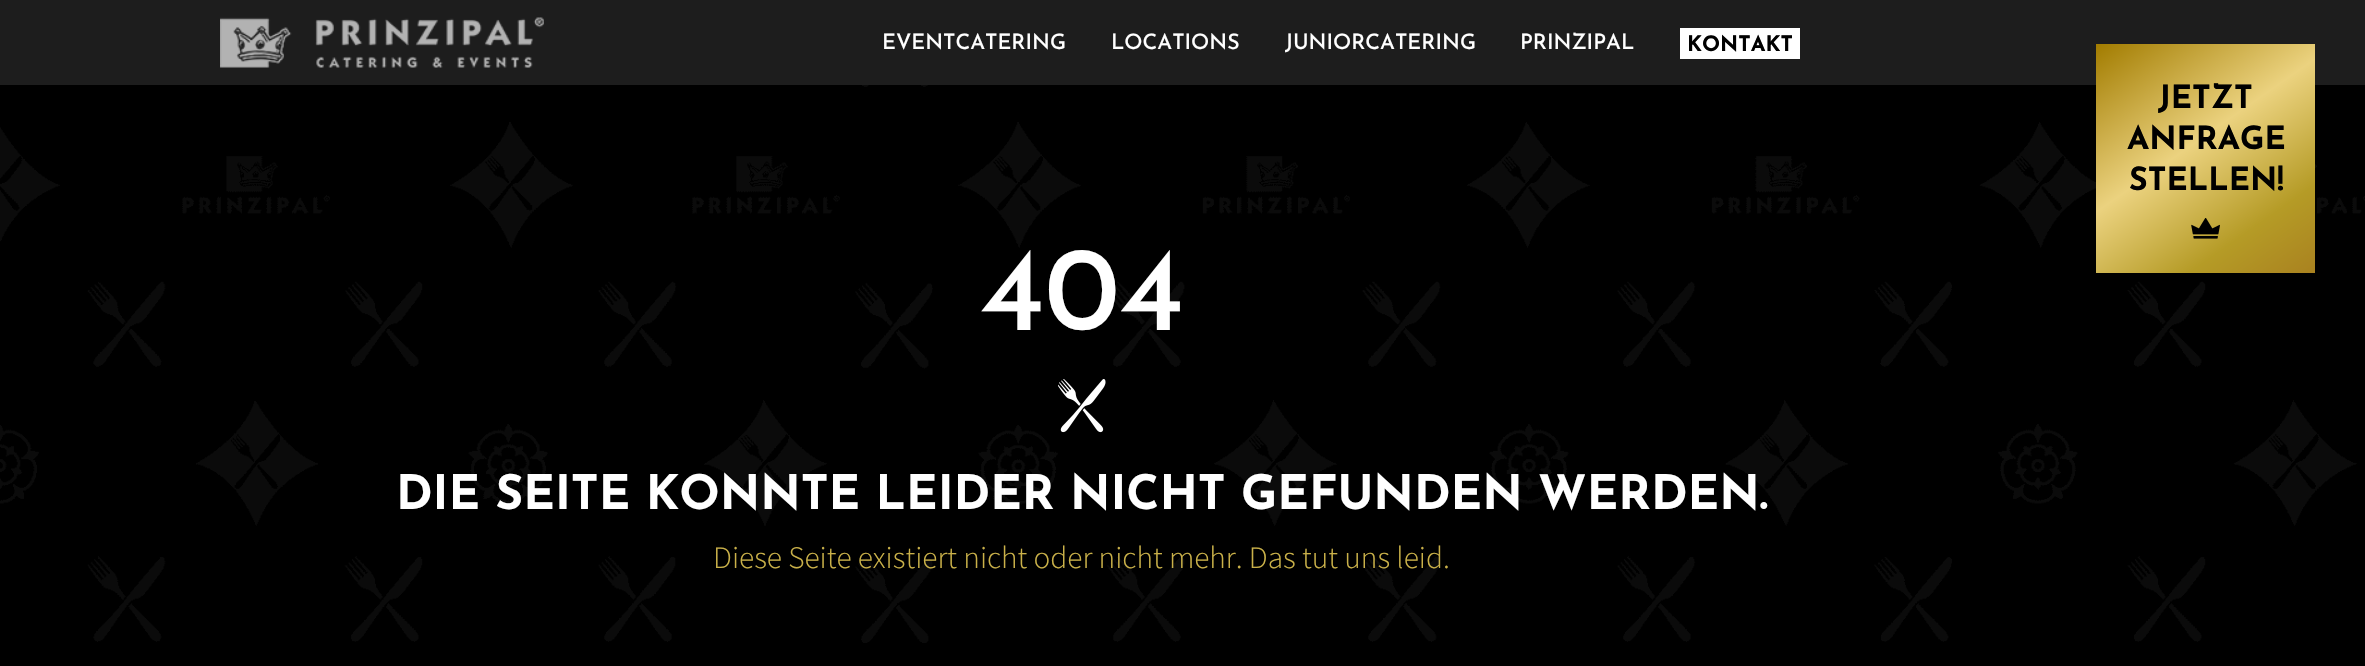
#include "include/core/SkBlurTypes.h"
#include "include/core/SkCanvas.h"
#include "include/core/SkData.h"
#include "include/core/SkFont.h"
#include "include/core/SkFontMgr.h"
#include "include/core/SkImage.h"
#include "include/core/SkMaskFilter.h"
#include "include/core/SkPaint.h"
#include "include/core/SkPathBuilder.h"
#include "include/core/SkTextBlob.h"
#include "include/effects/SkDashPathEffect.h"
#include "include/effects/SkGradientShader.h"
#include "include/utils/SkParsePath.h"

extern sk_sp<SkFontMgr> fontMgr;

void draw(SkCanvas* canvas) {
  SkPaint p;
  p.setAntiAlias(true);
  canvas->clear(SK_ColorBLACK);
  p.setColor(SkColorSetRGB(29, 29, 29));
  canvas->drawRect(SkRect::MakeLTRB(0, 0, 2365, 85), p);
  canvas->drawImageRect(SkImages::DeferredFromEncodedData(SkData::MakeFromFileName("images/1.png")), SkRect::MakeLTRB(220, 17, 544, 68), SkSamplingOptions());
  p.setColor(SK_ColorWHITE);
  canvas->drawRect(SkRect::MakeLTRB(1680, 28, 1800, 59), p);
  canvas->drawImageRect(SkImages::DeferredFromEncodedData(SkData::MakeFromFileName("images/3.png")), SkRect::MakeLTRB(0, 85, 2365, 643), SkSamplingOptions());
  {
    const SkColor colors[] = {SkColorSetRGB(162, 124, 0), SkColorSetRGB(235, 210, 127), SkColorSetRGB(181, 155, 38), SkColorSetRGB(164, 119, 29), SkColorSetRGB(181, 155, 38), SkColorSetRGB(235, 210, 127), SkColorSetRGB(162, 124, 0)};
    const float stops[] = {0, 0.2f, 0.35f, 0.5f, 0.63f, 0.75f, 1};
    const SkPoint ends[] = {{2336, -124}, {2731, 440}};
    p.setShader(SkGradientShader::MakeLinear(ends, colors, stops, 7, SkTileMode::kClamp));
    p.setAlpha(255);
  }
  canvas->drawRect(SkRect::MakeLTRB(2096, 44, 2315, 273), p);
  canvas->drawImageRect(SkImages::DeferredFromEncodedData(SkData::MakeFromFileName("images/2.png")), SkRect::MakeLTRB(2191, 218, 2220, 239), SkSamplingOptions());
  canvas->drawImageRect(SkImages::DeferredFromEncodedData(SkData::MakeFromFileName("images/4.png")), SkRect::MakeLTRB(1058, 379, 1106, 433), SkSamplingOptions());
  SkFont font1(fontMgr->matchFamilyStyle("Josefin Sans", SkFontStyle(100, SkFontStyle::kNormal_Width, SkFontStyle::kUpright_Slant)), 21.25f);
  font1.setSubpixel(true);
  p.setShader(nullptr);
  p.setColor(SK_ColorWHITE);
  canvas->drawString("EVENTCATERING", 882, 49, font1, p);
  canvas->drawString("LOCATIONS", 1111, 49, font1, p);
  canvas->drawString("JUNIORCATERING", 1285, 49, font1, p);
  canvas->drawString("PRINZIPAL", 1520, 49, font1, p);
  SkFont font2(fontMgr->matchFamilyStyle("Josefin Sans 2", SkFontStyle(100, SkFontStyle::kNormal_Width, SkFontStyle::kUpright_Slant)), 21.25f);
  font2.setSubpixel(true);
  p.setColor(SK_ColorBLACK);
  canvas->drawString("KONTAKT", 1687, 51, font2, p);
  SkFont font3(fontMgr->matchFamilyStyle("Josefin Sans 2", SkFontStyle(100, SkFontStyle::kNormal_Width, SkFontStyle::kUpright_Slant)), 32);
  font3.setSubpixel(true);
  canvas->drawString("JETZT", 2158, 108, font3, p);
  canvas->drawString("ANFRAGE", 2127, 149, font3, p);
  canvas->drawString("STELLEN!", 2129, 190, font3, p);
  SkFont font4(fontMgr->matchFamilyStyle("Josefin Sans", SkFontStyle(100, SkFontStyle::kNormal_Width, SkFontStyle::kUpright_Slant)), 120);
  font4.setSubpixel(true);
  p.setColor(SK_ColorWHITE);
  canvas->drawString("404", 980, 330, font4, p);
  SkFont font5(fontMgr->matchFamilyStyle("Josefin Sans 2", SkFontStyle(100, SkFontStyle::kNormal_Width, SkFontStyle::kUpright_Slant)), 47.5f);
  font5.setSubpixel(true);
  canvas->drawString("DIE SEITE KONNTE LEIDER NICHT GEFUNDEN WERDEN.", 396, 509, font5, p);
  SkFont font6(fontMgr->matchFamilyStyle("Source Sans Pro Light", SkFontStyle(300, SkFontStyle::kNormal_Width, SkFontStyle::kUpright_Slant)), 31.25f);
  font6.setSubpixel(true);
  p.setColor(SkColorSetRGB(202, 177, 73));
  canvas->drawString("Diese Seite existiert nicht oder nicht mehr. Das tut uns leid.", 713, 568, font6, p);
}
